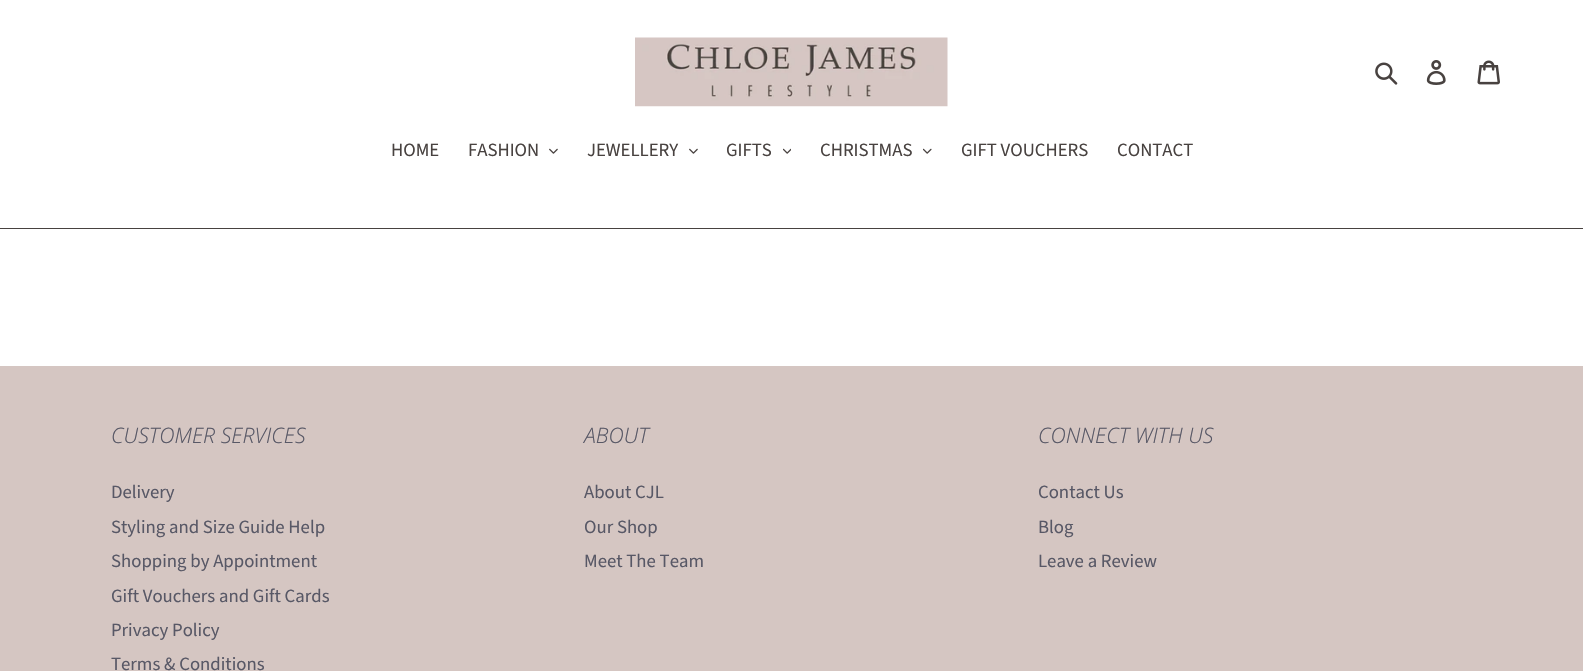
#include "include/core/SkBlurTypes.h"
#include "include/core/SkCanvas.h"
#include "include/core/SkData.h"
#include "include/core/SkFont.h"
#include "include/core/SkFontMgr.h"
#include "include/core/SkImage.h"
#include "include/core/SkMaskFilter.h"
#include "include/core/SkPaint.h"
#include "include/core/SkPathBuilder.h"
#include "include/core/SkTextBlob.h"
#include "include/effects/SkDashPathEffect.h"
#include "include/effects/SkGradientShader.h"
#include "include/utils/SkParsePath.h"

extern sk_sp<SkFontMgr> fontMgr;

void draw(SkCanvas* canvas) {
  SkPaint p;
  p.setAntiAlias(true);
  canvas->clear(SK_ColorWHITE);
  canvas->drawImageRect(SkImages::DeferredFromEncodedData(SkData::MakeFromFileName("images/1.png")), SkRect::MakeLTRB(635, 37, 948, 107), SkSamplingOptions());
  canvas->drawImageRect(SkImages::DeferredFromEncodedData(SkData::MakeFromFileName("images/2.png")), SkRect::MakeLTRB(1375, 62, 1398, 85), SkSamplingOptions());
  canvas->drawImageRect(SkImages::DeferredFromEncodedData(SkData::MakeFromFileName("images/3.png")), SkRect::MakeLTRB(1426, 60, 1446, 85), SkSamplingOptions());
  canvas->drawImageRect(SkImages::DeferredFromEncodedData(SkData::MakeFromFileName("images/4.png")), SkRect::MakeLTRB(1477, 60, 1500, 85), SkSamplingOptions());
  p.setColor(SkColorSetRGB(72, 66, 64));
  canvas->drawRect(SkRect::MakeLTRB(0, 228, 1583, 229), p);
  canvas->drawImageRect(SkImages::DeferredFromEncodedData(SkData::MakeFromFileName("images/5.png")), SkRect::MakeLTRB(549, 148, 558, 154), SkSamplingOptions());
  canvas->drawImageRect(SkImages::DeferredFromEncodedData(SkData::MakeFromFileName("images/5.png")), SkRect::MakeLTRB(689, 148, 698, 154), SkSamplingOptions());
  canvas->drawImageRect(SkImages::DeferredFromEncodedData(SkData::MakeFromFileName("images/6.png")), SkRect::MakeLTRB(783, 148, 791, 154), SkSamplingOptions());
  canvas->drawImageRect(SkImages::DeferredFromEncodedData(SkData::MakeFromFileName("images/7.png")), SkRect::MakeLTRB(923, 148, 932, 154), SkSamplingOptions());
  p.setColor(SkColorSetRGB(213, 198, 194));
  canvas->drawRect(SkRect::MakeLTRB(0, 366, 1583, 671), p);
  SkFont font1(fontMgr->matchFamilyStyle("Source Sans Pro", SkFontStyle::Normal()), 18.75f);
  font1.setSubpixel(true);
  p.setColor(SkColorSetRGB(72, 66, 64));
  canvas->drawString("HOME", 391, 156, font1, p);
  canvas->drawString("FASHION", 468, 156, font1, p);
  canvas->drawString("JEWELLERY", 587, 156, font1, p);
  canvas->drawString("GIFTS", 726, 156, font1, p);
  canvas->drawString("CHRISTMAS", 820, 156, font1, p);
  canvas->drawString("GIFT VOUCHERS", 961, 156, font1, p);
  canvas->drawString("CONTACT", 1117, 156, font1, p);
  SkFont font2(fontMgr->matchFamilyStyle("Open Sans", SkFontStyle(300, SkFontStyle::kNormal_Width, SkFontStyle::kItalic_Slant)), 21.25f);
  font2.setSubpixel(true);
  p.setColor(SkColorSetRGB(88, 88, 102));
  canvas->drawString("CUSTOMER SERVICES", 111, 443, font2, p);
  canvas->drawString("Delivery", 111, 498, font1, p);
  canvas->drawString("Styling and Size Guide Help", 111, 533, font1, p);
  canvas->drawString("Shopping by Appointment", 111, 567, font1, p);
  canvas->drawString("Gift Vouchers and Gift Cards", 111, 602, font1, p);
  canvas->drawString("Privacy Policy", 111, 636, font1, p);
  canvas->drawString("Terms & Conditions", 111, 670, font1, p);
  canvas->drawString("ABOUT", 584, 443, font2, p);
  canvas->drawString("About CJL", 584, 498, font1, p);
  canvas->drawString("Our Shop", 584, 533, font1, p);
  canvas->drawString("Meet The Team", 584, 567, font1, p);
  canvas->drawString("CONNECT WITH US", 1038, 443, font2, p);
  canvas->drawString("Contact Us", 1038, 498, font1, p);
  canvas->drawString("Blog", 1038, 533, font1, p);
  canvas->drawString("Leave a Review", 1038, 567, font1, p);
}
